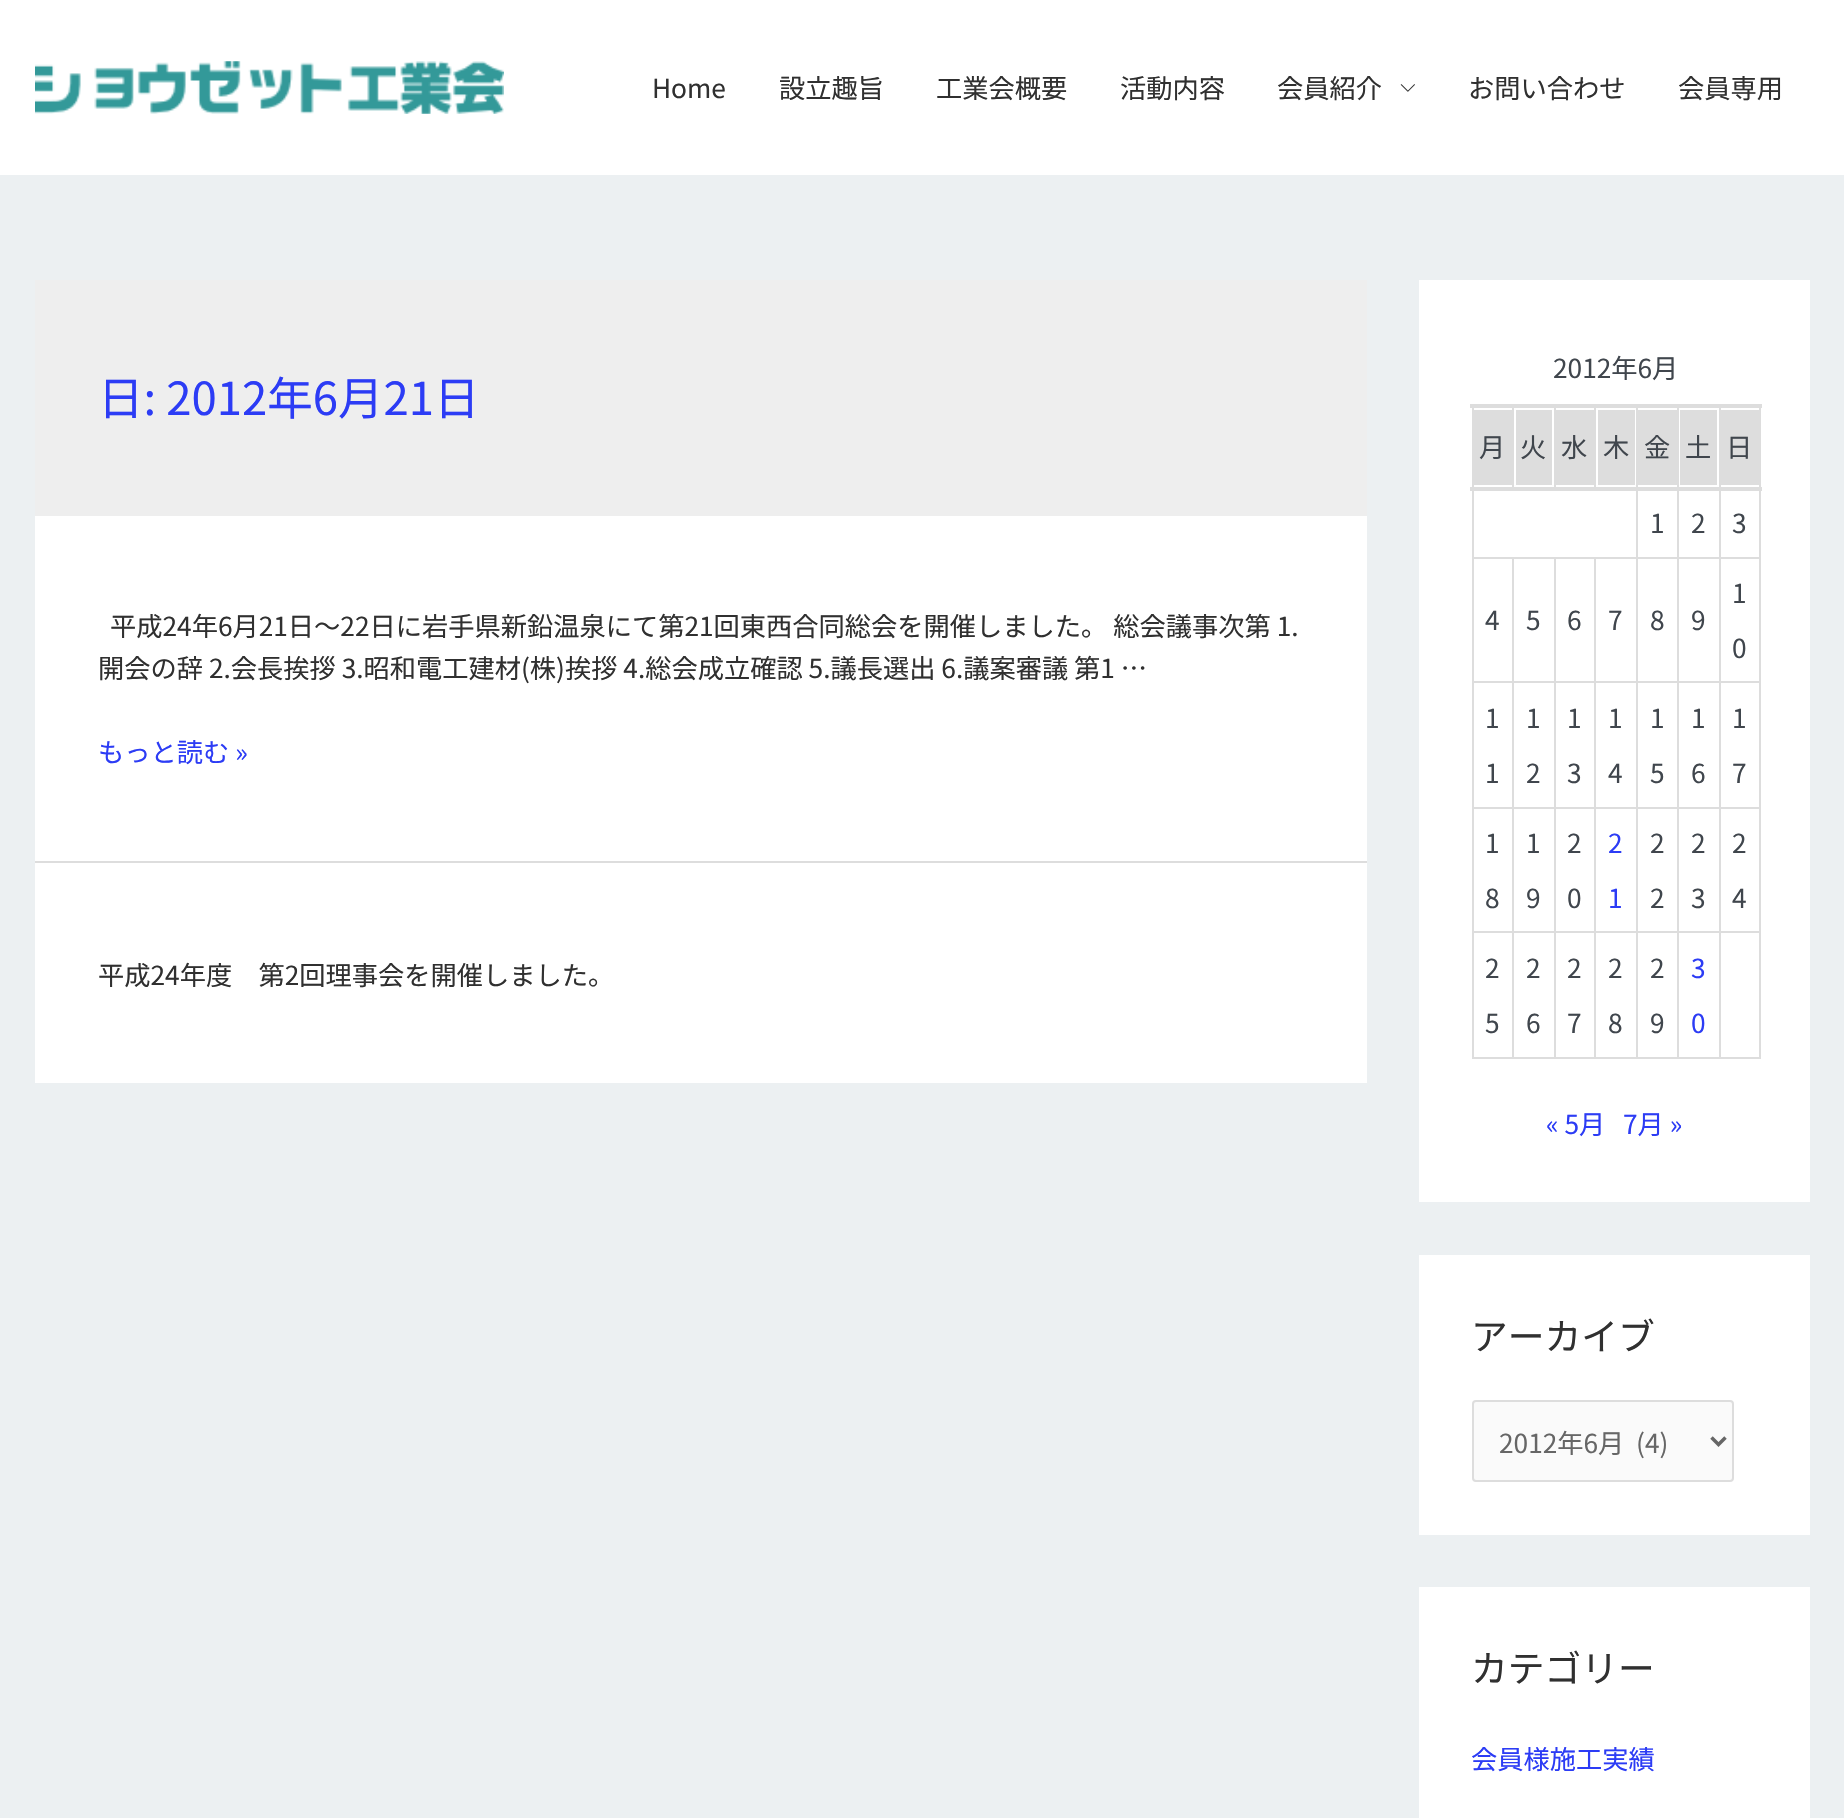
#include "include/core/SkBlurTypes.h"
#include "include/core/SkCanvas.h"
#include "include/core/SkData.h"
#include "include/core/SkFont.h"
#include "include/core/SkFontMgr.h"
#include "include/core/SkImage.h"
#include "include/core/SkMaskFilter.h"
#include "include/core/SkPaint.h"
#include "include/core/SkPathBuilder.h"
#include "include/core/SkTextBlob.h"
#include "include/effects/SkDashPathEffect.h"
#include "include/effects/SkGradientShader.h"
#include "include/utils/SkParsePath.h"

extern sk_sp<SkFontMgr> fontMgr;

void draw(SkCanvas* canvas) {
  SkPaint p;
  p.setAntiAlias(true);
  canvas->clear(SkColorSetRGB(236, 240, 242));
  p.setColor(SK_ColorWHITE);
  canvas->drawRect(SkRect::MakeLTRB(0, 0, 1844, 175), p);
  canvas->drawImageRect(SkImages::DeferredFromEncodedData(SkData::MakeFromFileName("images/1.png")), SkRect::MakeLTRB(35, 61, 504, 114), SkSamplingOptions());
  canvas->drawImageRect(SkImages::DeferredFromEncodedData(SkData::MakeFromFileName("images/2.png")), SkRect::MakeLTRB(1400, 84, 1415, 92), SkSamplingOptions());
  p.setColor(SkColorSetRGB(238, 238, 238));
  canvas->drawRect(SkRect::MakeLTRB(35, 280, 1367, 516), p);
  p.setColor(SK_ColorWHITE);
  canvas->drawRect(SkRect::MakeLTRB(35, 516, 1367, 861), p);
  p.setColor(SkColorSetRGB(221, 221, 221));
  canvas->drawRect(SkRect::MakeLTRB(35, 861, 1367, 863), p);
  p.setColor(SK_ColorWHITE);
  canvas->drawRect(SkRect::MakeLTRB(35, 863, 1367, 1083), p);
  canvas->drawRect(SkRect::MakeLTRB(1419, 280, 1810, 1202), p);
  p.setColor(SkColorSetRGB(221, 221, 221));
  canvas->drawRect(SkRect::MakeLTRB(1474, 410, 1512, 485), p);
  canvas->drawRect(SkRect::MakeLTRB(1516, 410, 1552, 485), p);
  canvas->drawRect(SkRect::MakeLTRB(1512, 404, 1514, 488), p);
  canvas->drawRect(SkRect::MakeLTRB(1556, 410, 1594, 485), p);
  canvas->drawRect(SkRect::MakeLTRB(1554, 404, 1556, 488), p);
  canvas->drawRect(SkRect::MakeLTRB(1598, 410, 1635, 485), p);
  canvas->drawRect(SkRect::MakeLTRB(1594, 404, 1596, 488), p);
  canvas->drawRect(SkRect::MakeLTRB(1638, 410, 1677, 485), p);
  canvas->drawRect(SkRect::MakeLTRB(1680, 410, 1717, 485), p);
  canvas->drawRect(SkRect::MakeLTRB(1721, 410, 1759, 485), p);
  canvas->drawRect(SkRect::MakeLTRB(1719, 557, 1761, 559), p);
  canvas->drawRect(SkRect::MakeLTRB(1719, 681, 1761, 683), p);
  canvas->drawRect(SkRect::MakeLTRB(1719, 807, 1761, 809), p);
  canvas->drawRect(SkRect::MakeLTRB(1719, 931, 1761, 933), p);
  canvas->drawRect(SkRect::MakeLTRB(1759, 931, 1761, 1059), p);
  canvas->drawRect(SkRect::MakeLTRB(1719, 1057, 1761, 1059), p);
  canvas->drawRect(SkRect::MakeLTRB(1719, 931, 1721, 1059), p);
  canvas->drawRect(SkRect::MakeLTRB(1677, 931, 1720, 933), p);
  canvas->drawRect(SkRect::MakeLTRB(1719, 807, 1721, 933), p);
  canvas->drawRect(SkRect::MakeLTRB(1677, 807, 1720, 809), p);
  canvas->drawRect(SkRect::MakeLTRB(1719, 681, 1721, 809), p);
  canvas->drawRect(SkRect::MakeLTRB(1677, 681, 1720, 683), p);
  canvas->drawRect(SkRect::MakeLTRB(1719, 557, 1721, 683), p);
  canvas->drawRect(SkRect::MakeLTRB(1677, 557, 1720, 559), p);
  canvas->drawRect(SkRect::MakeLTRB(1677, 1057, 1720, 1059), p);
  canvas->drawRect(SkRect::MakeLTRB(1677, 931, 1679, 1059), p);
  canvas->drawRect(SkRect::MakeLTRB(1636, 931, 1678, 933), p);
  canvas->drawRect(SkRect::MakeLTRB(1677, 807, 1679, 933), p);
  canvas->drawRect(SkRect::MakeLTRB(1636, 807, 1678, 809), p);
  canvas->drawRect(SkRect::MakeLTRB(1677, 681, 1679, 809), p);
  canvas->drawRect(SkRect::MakeLTRB(1636, 681, 1678, 683), p);
  canvas->drawRect(SkRect::MakeLTRB(1677, 557, 1679, 683), p);
  canvas->drawRect(SkRect::MakeLTRB(1636, 557, 1678, 559), p);
  canvas->drawRect(SkRect::MakeLTRB(1636, 1057, 1678, 1059), p);
  canvas->drawRect(SkRect::MakeLTRB(1636, 931, 1638, 1059), p);
  canvas->drawRect(SkRect::MakeLTRB(1594, 931, 1638, 933), p);
  canvas->drawRect(SkRect::MakeLTRB(1636, 807, 1638, 933), p);
  canvas->drawRect(SkRect::MakeLTRB(1594, 807, 1638, 809), p);
  canvas->drawRect(SkRect::MakeLTRB(1636, 681, 1638, 809), p);
  canvas->drawRect(SkRect::MakeLTRB(1594, 681, 1638, 683), p);
  canvas->drawRect(SkRect::MakeLTRB(1636, 557, 1638, 683), p);
  canvas->drawRect(SkRect::MakeLTRB(1594, 557, 1638, 559), p);
  canvas->drawRect(SkRect::MakeLTRB(1636, 404, 1638, 558), p);
  canvas->drawRect(SkRect::MakeLTRB(1677, 404, 1679, 558), p);
  canvas->drawRect(SkRect::MakeLTRB(1719, 404, 1721, 558), p);
  canvas->drawRect(SkRect::MakeLTRB(1594, 1057, 1638, 1059), p);
  canvas->drawRect(SkRect::MakeLTRB(1594, 931, 1596, 1059), p);
  canvas->drawRect(SkRect::MakeLTRB(1554, 931, 1596, 933), p);
  canvas->drawRect(SkRect::MakeLTRB(1594, 807, 1596, 933), p);
  canvas->drawRect(SkRect::MakeLTRB(1554, 807, 1596, 809), p);
  canvas->drawRect(SkRect::MakeLTRB(1594, 681, 1596, 809), p);
  canvas->drawRect(SkRect::MakeLTRB(1554, 681, 1596, 683), p);
  canvas->drawRect(SkRect::MakeLTRB(1594, 557, 1596, 683), p);
  canvas->drawRect(SkRect::MakeLTRB(1554, 557, 1596, 559), p);
  canvas->drawRect(SkRect::MakeLTRB(1554, 1057, 1596, 1059), p);
  canvas->drawRect(SkRect::MakeLTRB(1554, 931, 1556, 1059), p);
  canvas->drawRect(SkRect::MakeLTRB(1512, 931, 1556, 933), p);
  canvas->drawRect(SkRect::MakeLTRB(1554, 807, 1556, 933), p);
  canvas->drawRect(SkRect::MakeLTRB(1512, 807, 1556, 809), p);
  canvas->drawRect(SkRect::MakeLTRB(1554, 681, 1556, 809), p);
  canvas->drawRect(SkRect::MakeLTRB(1512, 681, 1556, 683), p);
  canvas->drawRect(SkRect::MakeLTRB(1554, 557, 1556, 683), p);
  canvas->drawRect(SkRect::MakeLTRB(1512, 557, 1556, 559), p);
  canvas->drawRect(SkRect::MakeLTRB(1512, 1057, 1556, 1059), p);
  canvas->drawRect(SkRect::MakeLTRB(1512, 931, 1514, 1059), p);
  canvas->drawRect(SkRect::MakeLTRB(1472, 931, 1514, 933), p);
  canvas->drawRect(SkRect::MakeLTRB(1512, 807, 1514, 933), p);
  canvas->drawRect(SkRect::MakeLTRB(1472, 807, 1514, 809), p);
  canvas->drawRect(SkRect::MakeLTRB(1512, 681, 1514, 809), p);
  canvas->drawRect(SkRect::MakeLTRB(1472, 681, 1514, 683), p);
  canvas->drawRect(SkRect::MakeLTRB(1512, 557, 1514, 683), p);
  canvas->drawRect(SkRect::MakeLTRB(1472, 557, 1514, 559), p);
  canvas->drawRect(SkRect::MakeLTRB(1472, 1057, 1514, 1059), p);
  canvas->drawRect(SkRect::MakeLTRB(1472, 931, 1474, 1059), p);
  canvas->drawRect(SkRect::MakeLTRB(1472, 807, 1474, 933), p);
  canvas->drawRect(SkRect::MakeLTRB(1472, 681, 1474, 809), p);
  canvas->drawRect(SkRect::MakeLTRB(1472, 404, 1474, 683), p);
  canvas->drawRect(SkRect::MakeLTRB(1759, 807, 1761, 933), p);
  canvas->drawRect(SkRect::MakeLTRB(1759, 681, 1761, 809), p);
  canvas->drawRect(SkRect::MakeLTRB(1759, 404, 1761, 683), p);
  canvas->drawRect(SkRect::MakeLTRB(1470, 404, 1762, 408), p);
  canvas->drawRect(SkRect::MakeLTRB(1470, 487, 1762, 491), p);
  p.setColor(SK_ColorWHITE);
  canvas->drawRect(SkRect::MakeLTRB(1419, 1255, 1810, 1535), p);
  p.setColor(SkColorSetRGB(250, 250, 250));
  canvas->drawRoundRect(SkRect::MakeLTRB(1473, 1401, 1733, 1481), 3, 3, p);
  p.setStyle(SkPaint::kStroke_Style);
  p.setStrokeWidth(2);
  p.setColor(SkColorSetRGB(221, 221, 221));
  canvas->drawRoundRect(SkRect::MakeLTRB(1473, 1401, 1733, 1481), 3, 3, p);
  p.setStrokeWidth(3.5f);
  p.setColor(SkColorSetRGB(102, 102, 102));
  canvas->drawPath(SkPathBuilder().moveTo(1711.5f, 1437.5f).lineTo(1718.5f, 1444.5f).lineTo(1725.5f, 1437.5f).detach(), p);
  p.setStyle(SkPaint::kFill_Style);
  p.setColor(SK_ColorWHITE);
  canvas->drawRect(SkRect::MakeLTRB(1419, 1587, 1810, 1818), p);
  SkFont font1(fontMgr->matchFamilyStyle("Noto Sans JP", SkFontStyle::Normal()), 26.25f);
  font1.setSubpixel(true);
  p.setColor(SkColorSetRGB(48, 48, 48));
  canvas->drawString("Home", 652, 98, font1, p);
  canvas->drawString("設立趣旨", 779, 98, font1, p);
  canvas->drawString("工業会概要", 936, 98, font1, p);
  canvas->drawString("活動内容", 1120, 98, font1, p);
  canvas->drawString("会員紹介", 1277, 98, font1, p);
  canvas->drawString("お問い合わせ", 1468, 98, font1, p);
  canvas->drawString("会員専用", 1678, 98, font1, p);
  SkFont font2(fontMgr->matchFamilyStyle("Noto Sans JP", SkFontStyle::Normal()), 45.5f);
  font2.setSubpixel(true);
  p.setColor(SkColorSetRGB(44, 60, 245));
  canvas->drawString("日: 2012年6月21日", 98, 415, font2, p);
  p.setColor(SkColorSetRGB(48, 48, 48));
  canvas->drawString("平成24年6月21日〜22日に岩手県新鉛温泉にて第21回東西合同総会を開催しました。 総会議事次第 1.", 110, 636, font1, p);
  canvas->drawString("開会の辞 2.会長挨拶 3.昭和電工建材(株)挨拶 4.総会成立確認 5.議長選出 6.議案審議 第1 …", 98, 678, font1, p);
  p.setColor(SkColorSetRGB(44, 60, 245));
  canvas->drawString("もっと読む »", 98, 762, font1, p);
  p.setColor(SkColorSetRGB(48, 48, 48));
  canvas->drawString("平成24年度　第2回理事会を開催しました。", 98, 985, font1, p);
  p.setColor(SkColorSetRGB(64, 70, 77));
  canvas->drawString("2012年6月", 1553, 378, font1, p);
  canvas->drawString("月", 1479, 457, font1, p);
  canvas->drawString("火", 1520, 457, font1, p);
  canvas->drawString("水", 1561, 457, font1, p);
  canvas->drawString("木", 1603, 457, font1, p);
  canvas->drawString("金", 1644, 457, font1, p);
  canvas->drawString("土", 1685, 457, font1, p);
  canvas->drawString("日", 1726, 457, font1, p);
  canvas->drawString("1", 1650, 533, font1, p);
  canvas->drawString("2", 1691, 533, font1, p);
  canvas->drawString("3", 1732, 533, font1, p);
  canvas->drawString("4", 1485, 630, font1, p);
  canvas->drawString("5", 1526, 630, font1, p);
  canvas->drawString("6", 1567, 630, font1, p);
  canvas->drawString("7", 1608, 630, font1, p);
  canvas->drawString("8", 1650, 630, font1, p);
  canvas->drawString("9", 1691, 630, font1, p);
  canvas->drawString("1", 1732, 603, font1, p);
  canvas->drawString("0", 1732, 658, font1, p);
  canvas->drawString("1", 1485, 728, font1, p);
  canvas->drawString("1", 1485, 783, font1, p);
  canvas->drawString("1", 1526, 728, font1, p);
  canvas->drawString("2", 1526, 783, font1, p);
  canvas->drawString("1", 1567, 728, font1, p);
  canvas->drawString("3", 1567, 783, font1, p);
  canvas->drawString("1", 1608, 728, font1, p);
  canvas->drawString("4", 1608, 783, font1, p);
  canvas->drawString("1", 1650, 728, font1, p);
  canvas->drawString("5", 1650, 783, font1, p);
  canvas->drawString("1", 1691, 728, font1, p);
  canvas->drawString("6", 1691, 783, font1, p);
  canvas->drawString("1", 1732, 728, font1, p);
  canvas->drawString("7", 1732, 783, font1, p);
  canvas->drawString("1", 1485, 853, font1, p);
  canvas->drawString("8", 1485, 908, font1, p);
  canvas->drawString("1", 1526, 853, font1, p);
  canvas->drawString("9", 1526, 908, font1, p);
  canvas->drawString("2", 1567, 853, font1, p);
  canvas->drawString("0", 1567, 908, font1, p);
  p.setColor(SkColorSetRGB(44, 60, 245));
  canvas->drawString("2", 1608, 853, font1, p);
  canvas->drawString("1", 1608, 908, font1, p);
  p.setColor(SkColorSetRGB(64, 70, 77));
  canvas->drawString("2", 1650, 853, font1, p);
  canvas->drawString("2", 1650, 908, font1, p);
  canvas->drawString("2", 1691, 853, font1, p);
  canvas->drawString("3", 1691, 908, font1, p);
  canvas->drawString("2", 1732, 853, font1, p);
  canvas->drawString("4", 1732, 908, font1, p);
  canvas->drawString("2", 1485, 978, font1, p);
  canvas->drawString("5", 1485, 1033, font1, p);
  canvas->drawString("2", 1526, 978, font1, p);
  canvas->drawString("6", 1526, 1033, font1, p);
  canvas->drawString("2", 1567, 978, font1, p);
  canvas->drawString("7", 1567, 1033, font1, p);
  canvas->drawString("2", 1608, 978, font1, p);
  canvas->drawString("8", 1608, 1033, font1, p);
  canvas->drawString("2", 1650, 978, font1, p);
  canvas->drawString("9", 1650, 1033, font1, p);
  p.setColor(SkColorSetRGB(44, 60, 245));
  canvas->drawString("3", 1691, 978, font1, p);
  canvas->drawString("0", 1691, 1033, font1, p);
  canvas->drawString("« 5月", 1546, 1134, font1, p);
  canvas->drawString("7月 »", 1623, 1134, font1, p);
  SkFont font3(fontMgr->matchFamilyStyle("Noto Sans JP", SkFontStyle::Normal()), 36.75f);
  font3.setSubpixel(true);
  p.setColor(SkColorSetRGB(48, 48, 48));
  canvas->drawString("アーカイブ", 1471, 1350, font3, p);
  p.setColor(SkColorSetRGB(102, 102, 102));
  canvas->drawString("2012年6月  (4)", 1499, 1453, font1, p);
  p.setColor(SkColorSetRGB(48, 48, 48));
  canvas->drawString("カテゴリー", 1471, 1682, font3, p);
  p.setColor(SkColorSetRGB(44, 60, 245));
  canvas->drawString("会員様施工実績", 1471, 1769, font1, p);
}
